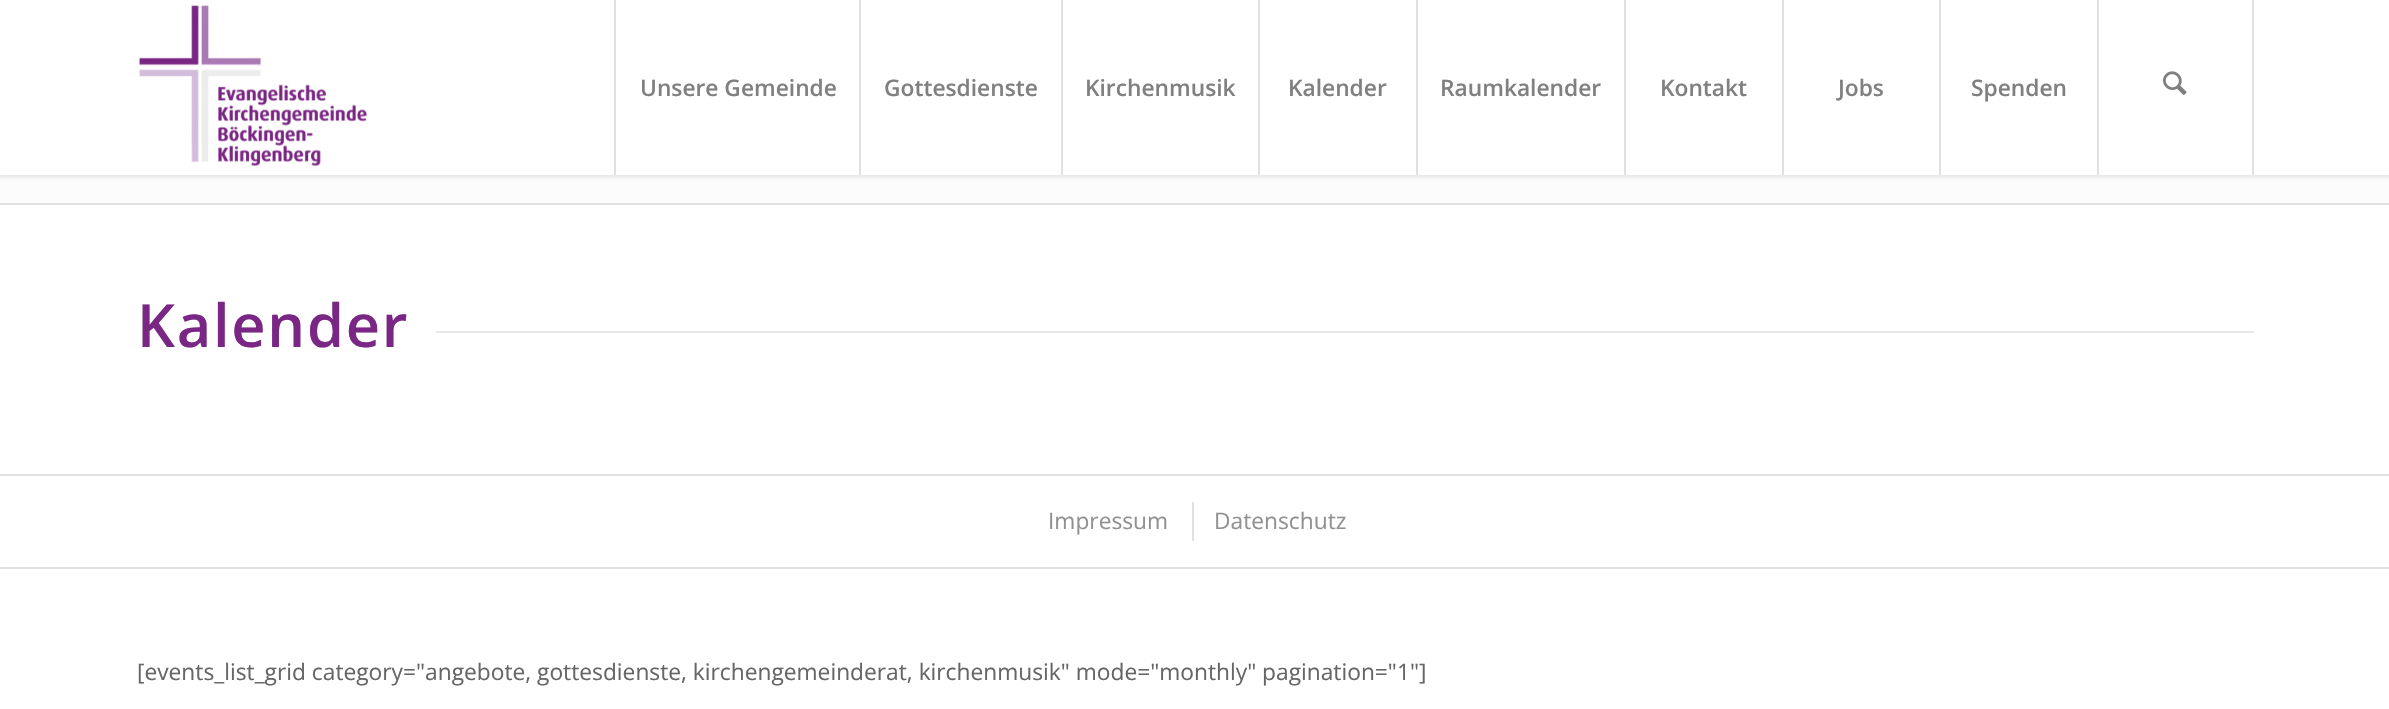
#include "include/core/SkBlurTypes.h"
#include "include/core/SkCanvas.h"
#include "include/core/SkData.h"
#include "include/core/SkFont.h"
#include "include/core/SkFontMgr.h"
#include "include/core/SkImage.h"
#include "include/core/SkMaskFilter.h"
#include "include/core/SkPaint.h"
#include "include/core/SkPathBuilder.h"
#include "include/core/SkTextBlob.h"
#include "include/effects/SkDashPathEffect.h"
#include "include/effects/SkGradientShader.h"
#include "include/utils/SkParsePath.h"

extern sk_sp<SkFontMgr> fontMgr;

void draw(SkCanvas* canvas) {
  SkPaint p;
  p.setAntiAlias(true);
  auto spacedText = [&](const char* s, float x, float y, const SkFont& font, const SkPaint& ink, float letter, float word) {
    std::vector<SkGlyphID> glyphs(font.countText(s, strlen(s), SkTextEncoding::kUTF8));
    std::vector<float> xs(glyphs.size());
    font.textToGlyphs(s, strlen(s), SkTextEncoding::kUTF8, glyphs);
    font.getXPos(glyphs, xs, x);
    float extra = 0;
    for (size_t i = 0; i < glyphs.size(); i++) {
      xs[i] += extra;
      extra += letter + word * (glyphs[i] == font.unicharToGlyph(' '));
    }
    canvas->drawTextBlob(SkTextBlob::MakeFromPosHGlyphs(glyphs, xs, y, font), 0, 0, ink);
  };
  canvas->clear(SK_ColorWHITE);
  p.setColor(SkColorSetRGB(252, 252, 252));
  canvas->drawRect(SkRect::MakeLTRB(0, 175, 2389, 203), p);
  p.setColor(SkColorSetARGB(26, 0, 0, 0));
  p.setMaskFilter(SkMaskFilter::MakeBlur(kNormal_SkBlurStyle, 2));
  canvas->drawRect(SkRect::MakeLTRB(-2, -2, 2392, 177), p);
  p.setMaskFilter(nullptr);
  p.setColor(SK_ColorWHITE);
  canvas->drawRect(SkRect::MakeLTRB(0, 0, 2389, 175), p);
  canvas->drawImageRect(SkImages::DeferredFromEncodedData(SkData::MakeFromFileName("images/1.png")), SkRect::MakeLTRB(139, 5, 367, 166), SkSamplingOptions());
  p.setColor(SkColorSetRGB(225, 225, 225));
  canvas->drawRect(SkRect::MakeLTRB(614, 0, 616, 175), p);
  canvas->drawRect(SkRect::MakeLTRB(859, 0, 861, 175), p);
  canvas->drawRect(SkRect::MakeLTRB(1061, 0, 1063, 175), p);
  canvas->drawRect(SkRect::MakeLTRB(1258, 0, 1260, 175), p);
  canvas->drawRect(SkRect::MakeLTRB(1416, 0, 1418, 175), p);
  canvas->drawRect(SkRect::MakeLTRB(1624, 0, 1626, 175), p);
  canvas->drawRect(SkRect::MakeLTRB(1782, 0, 1784, 175), p);
  canvas->drawRect(SkRect::MakeLTRB(1939, 0, 1941, 175), p);
  canvas->drawRect(SkRect::MakeLTRB(2252, 0, 2254, 175), p);
  canvas->drawRect(SkRect::MakeLTRB(2097, 0, 2099, 175), p);
  canvas->drawImageRect(SkImages::DeferredFromEncodedData(SkData::MakeFromFileName("images/2.png")), SkRect::MakeLTRB(2163, 71, 2187, 95), SkSamplingOptions());
  canvas->drawRect(SkRect::MakeLTRB(0, 203, 2389, 205), p);
  p.setColor(SkColorSetRGB(232, 232, 232));
  canvas->drawRect(SkRect::MakeLTRB(436, 331, 2254, 333), p);
  p.setColor(SkColorSetRGB(225, 225, 225));
  canvas->drawRect(SkRect::MakeLTRB(0, 474, 2389, 476), p);
  canvas->drawRect(SkRect::MakeLTRB(0, 567, 2389, 569), p);
  canvas->drawRect(SkRect::MakeLTRB(1192, 502, 1194, 541), p);
  SkFont font1(fontMgr->matchFamilyStyle("Open Sans", SkFontStyle(600, SkFontStyle::kNormal_Width, SkFontStyle::kUpright_Slant)), 22.75f);
  font1.setSubpixel(true);
  p.setColor(SkColorSetRGB(128, 128, 128));
  canvas->drawString("Unsere Gemeinde", 640, 96, font1, p);
  canvas->drawString("Gottesdienste", 884, 96, font1, p);
  canvas->drawString("Kirchenmusik", 1085, 96, font1, p);
  canvas->drawString("Kalender", 1288, 96, font1, p);
  canvas->drawString("Raumkalender", 1440, 96, font1, p);
  canvas->drawString("Kontakt", 1660, 96, font1, p);
  canvas->drawString("Jobs", 1838, 96, font1, p);
  canvas->drawString("Spenden", 1971, 96, font1, p);
  SkFont font2(fontMgr->matchFamilyStyle("Open Sans", SkFontStyle(600, SkFontStyle::kNormal_Width, SkFontStyle::kUpright_Slant)), 59.5f);
  font2.setSubpixel(true);
  p.setColor(SkColorSetRGB(121, 38, 132));
  spacedText("Kalender", 137, 347, font2, p, 1.75f, 0);
  SkFont font3(fontMgr->matchFamilyStyle("Open Sans", SkFontStyle::Normal()), 22.75f);
  font3.setSubpixel(true);
  p.setColor(SkColorSetRGB(145, 145, 145));
  canvas->drawString("Impressum", 1048, 529, font3, p);
  canvas->drawString("Datenschutz", 1214, 529, font3, p);
  p.setColor(SkColorSetRGB(102, 102, 102));
  canvas->drawString("[events_list_grid category=\"angebote, gottesdienste, kirchengemeinderat, kirchenmusik\" mode=\"monthly\" pagination=\"1\"]", 137, 680, font3, p);
}
